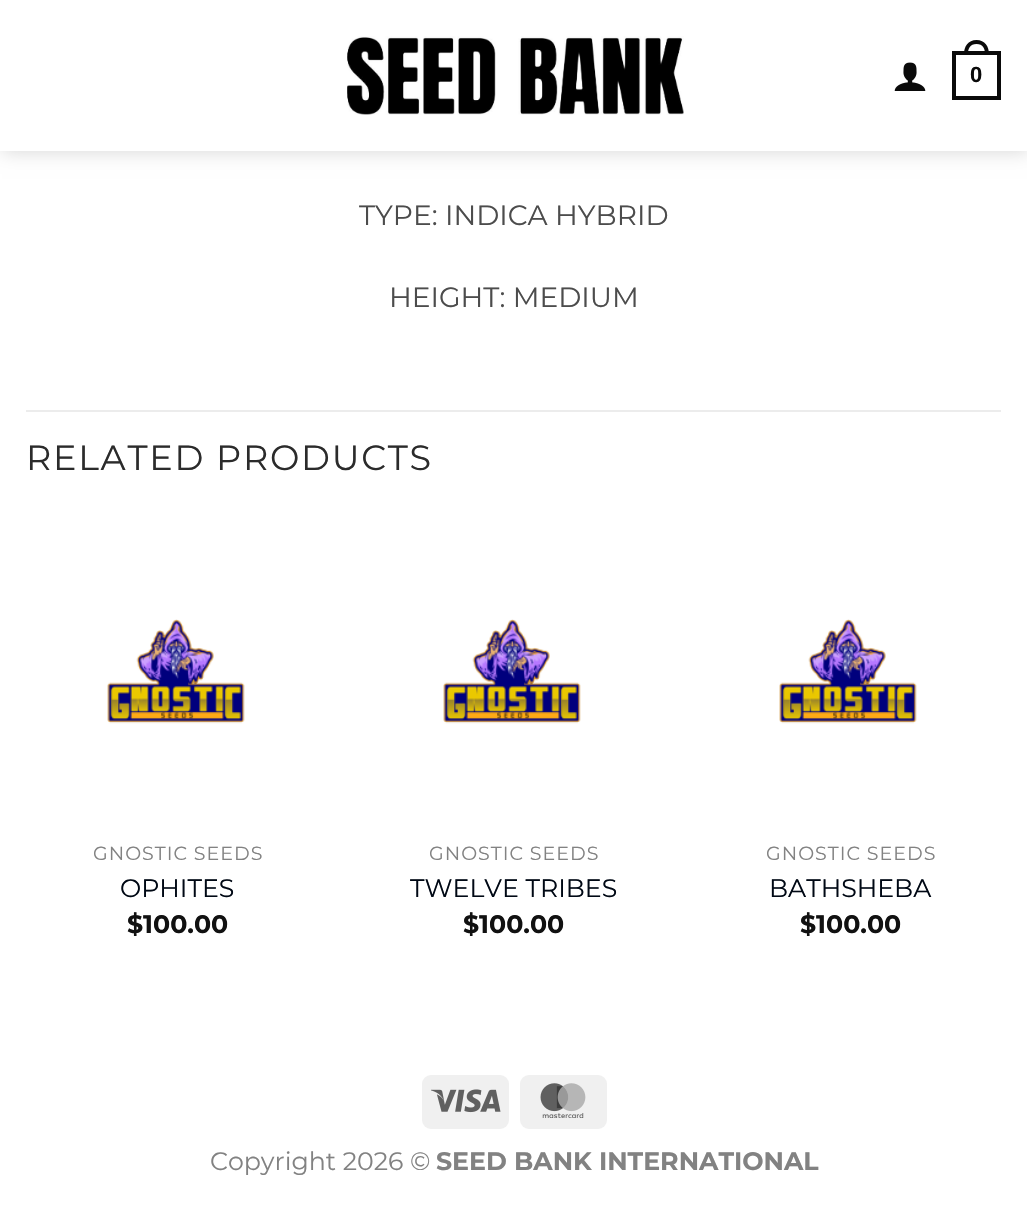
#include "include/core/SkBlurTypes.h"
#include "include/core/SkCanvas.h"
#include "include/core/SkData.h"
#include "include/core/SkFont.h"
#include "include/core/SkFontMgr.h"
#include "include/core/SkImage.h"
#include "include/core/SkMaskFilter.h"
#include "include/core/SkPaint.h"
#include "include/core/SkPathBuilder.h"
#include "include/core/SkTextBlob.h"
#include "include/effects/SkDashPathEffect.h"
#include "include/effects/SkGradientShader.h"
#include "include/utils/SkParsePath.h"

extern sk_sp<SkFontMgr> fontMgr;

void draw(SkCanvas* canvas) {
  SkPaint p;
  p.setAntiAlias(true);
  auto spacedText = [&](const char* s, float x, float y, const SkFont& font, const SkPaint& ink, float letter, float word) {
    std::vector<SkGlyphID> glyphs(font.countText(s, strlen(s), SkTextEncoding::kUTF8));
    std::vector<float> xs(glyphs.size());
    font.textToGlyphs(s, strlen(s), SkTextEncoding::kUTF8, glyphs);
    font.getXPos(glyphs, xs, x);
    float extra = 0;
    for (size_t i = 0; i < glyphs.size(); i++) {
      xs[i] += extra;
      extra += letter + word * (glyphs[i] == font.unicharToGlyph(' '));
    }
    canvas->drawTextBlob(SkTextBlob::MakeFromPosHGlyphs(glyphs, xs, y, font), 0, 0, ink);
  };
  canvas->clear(SK_ColorWHITE);
  p.setColor(SkColorSetARGB(38, 0, 0, 0));
  p.setMaskFilter(SkMaskFilter::MakeBlur(kNormal_SkBlurStyle, 9));
  canvas->drawRect(SkRect::MakeLTRB(2, 2, 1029, 152), p);
  p.setMaskFilter(nullptr);
  p.setColor(SK_ColorWHITE);
  canvas->drawRect(SkRect::MakeLTRB(0, 0, 1027, 151), p);
  canvas->drawImageRect(SkImages::DeferredFromEncodedData(SkData::MakeFromFileName("images/1.png")), SkRect::MakeLTRB(347, 36, 684, 115), SkSamplingOptions());
  canvas->drawImageRect(SkImages::DeferredFromEncodedData(SkData::MakeFromFileName("images/2.png")), SkRect::MakeLTRB(894, 62, 926, 91), SkSamplingOptions());
  p.setStyle(SkPaint::kStroke_Style);
  p.setStrokeWidth(4);
  p.setColor(SkColorSetRGB(10, 10, 10));
  canvas->drawRect(SkRect::MakeLTRB(954, 53, 999, 98), p);
  p.setStyle(SkPaint::kFill_Style);
  canvas->drawPath(SkPathBuilder(SkPathFillType::kEvenOdd).moveTo(976.5f, 40).cubicTo(985, 40, 989, 46.5f, 989, 54).lineTo(964, 54).cubicTo(964, 46.5f, 968, 40, 976.5f, 40).close().moveTo(976.5f, 44).cubicTo(983, 44, 985, 48.5f, 985, 54).lineTo(968, 54).cubicTo(968, 48.5f, 970, 44, 976.5f, 44).close().detach(), p);
  p.setColor(SkColorSetRGB(236, 236, 236));
  canvas->drawRect(SkRect::MakeLTRB(26, 410, 1001, 412), p);
  canvas->drawImageRect(SkImages::DeferredFromEncodedData(SkData::MakeFromFileName("images/3.png")), SkRect::MakeLTRB(107, 619, 245, 724), SkSamplingOptions());
  canvas->drawImageRect(SkImages::DeferredFromEncodedData(SkData::MakeFromFileName("images/3.png")), SkRect::MakeLTRB(443, 619, 581, 724), SkSamplingOptions());
  canvas->drawImageRect(SkImages::DeferredFromEncodedData(SkData::MakeFromFileName("images/3.png")), SkRect::MakeLTRB(779, 619, 917, 724), SkSamplingOptions());
  p.setColor(SkColorSetRGB(240, 240, 240));
  canvas->drawRoundRect(SkRect::MakeLTRB(422, 1075, 509, 1129), 9, 9, p);
  canvas->drawImageRect(SkImages::DeferredFromEncodedData(SkData::MakeFromFileName("images/4.png")), SkRect::MakeLTRB(431, 1089, 501, 1113), SkSamplingOptions());
  canvas->drawRoundRect(SkRect::MakeLTRB(520, 1075, 607, 1129), 9, 9, p);
  canvas->drawImageRect(SkImages::DeferredFromEncodedData(SkData::MakeFromFileName("images/5.png")), SkRect::MakeLTRB(540, 1083, 586, 1118), SkSamplingOptions());
  SkFont font1(fontMgr->matchFamilyStyle("Liberation Sans", SkFontStyle::Bold()), 22);
  font1.setSubpixel(true);
  p.setColor(SkColorSetRGB(10, 10, 10));
  canvas->drawString("0", 970, 82, font1, p);
  SkFont font2(fontMgr->matchFamilyStyle("Montserrat", SkFontStyle::Normal()), 28);
  font2.setSubpixel(true);
  p.setColor(SkColorSetRGB(76, 76, 76));
  canvas->drawString("TYPE: INDICA HYBRID", 359, 225, font2, p);
  canvas->drawString("HEIGHT: MEDIUM", 389, 307, font2, p);
  SkFont font3(fontMgr->matchFamilyStyle("Montserrat", SkFontStyle::Normal()), 35);
  font3.setSubpixel(true);
  p.setColor(SkColorSetRGB(43, 43, 43));
  spacedText("RELATED PRODUCTS", 26, 470, font3, p, 1.75f, 0);
  SkFont font4(fontMgr->matchFamilyStyle("Montserrat", SkFontStyle::Normal()), 19);
  font4.setSubpixel(true);
  p.setColor(SkColorSetRGB(130, 130, 130));
  spacedText("GNOSTIC SEEDS", 93, 860, font4, p, 1, 0);
  SkFont font5(fontMgr->matchFamilyStyle("Montserrat", SkFontStyle::Normal()), 25.25f);
  font5.setSubpixel(true);
  p.setColor(SkColorSetRGB(0, 8, 20));
  canvas->drawString("OPHITES", 120, 897, font5, p);
  SkFont font6(fontMgr->matchFamilyStyle("Montserrat", SkFontStyle::Bold()), 25.25f);
  font6.setSubpixel(true);
  p.setColor(SkColorSetRGB(17, 17, 17));
  canvas->drawString("$100.00", 127, 933, font6, p);
  p.setColor(SkColorSetRGB(130, 130, 130));
  spacedText("GNOSTIC SEEDS", 429, 860, font4, p, 1, 0);
  p.setColor(SkColorSetRGB(0, 8, 20));
  canvas->drawString("TWELVE TRIBES", 410, 897, font5, p);
  p.setColor(SkColorSetRGB(17, 17, 17));
  canvas->drawString("$100.00", 463, 933, font6, p);
  p.setColor(SkColorSetRGB(130, 130, 130));
  spacedText("GNOSTIC SEEDS", 766, 860, font4, p, 1, 0);
  p.setColor(SkColorSetRGB(0, 8, 20));
  canvas->drawString("BATHSHEBA", 769, 897, font5, p);
  p.setColor(SkColorSetRGB(17, 17, 17));
  canvas->drawString("$100.00", 800, 933, font6, p);
  p.setColor(SkColorSetRGB(130, 130, 130));
  canvas->drawString("Copyright 2026 ©", 210, 1170, font5, p);
  canvas->drawString("SEED BANK INTERNATIONAL", 436, 1170, font6, p);
}
